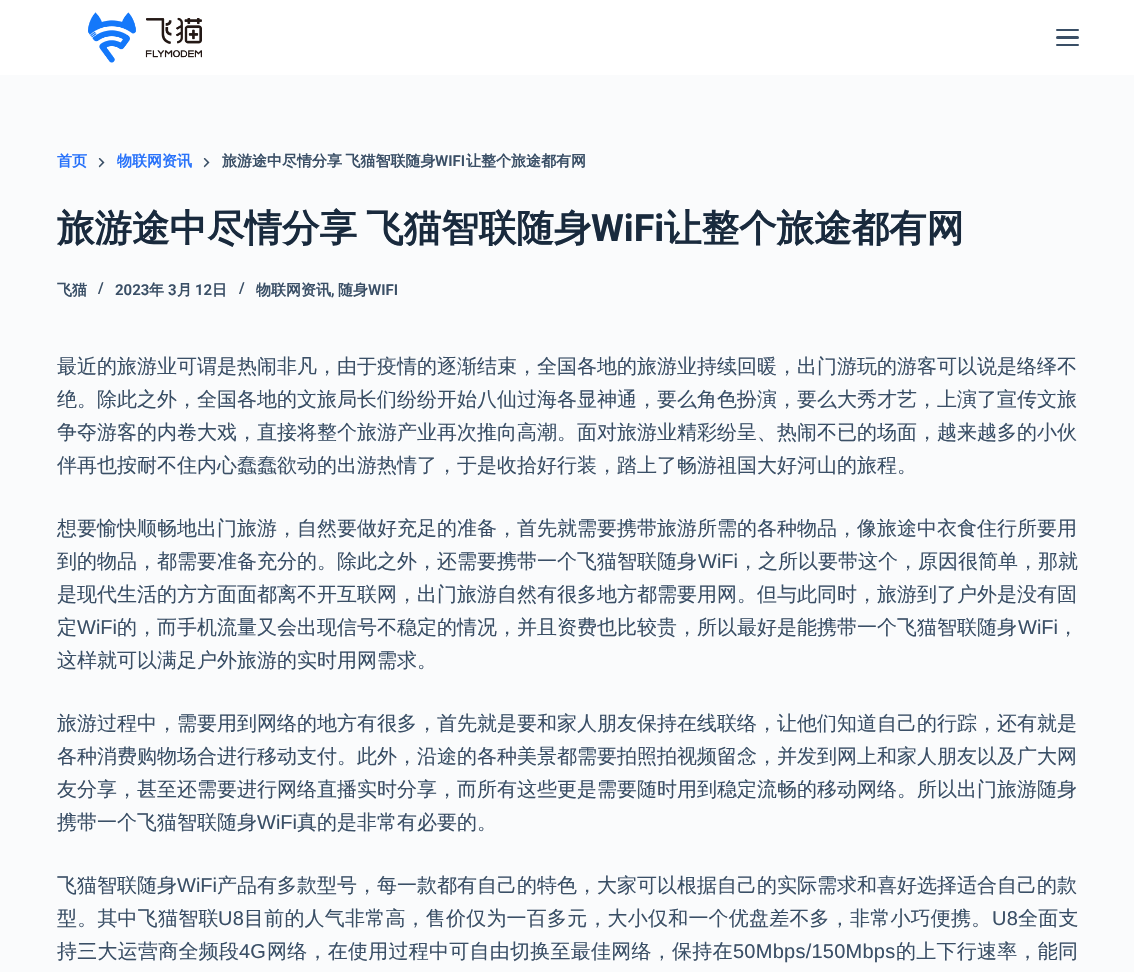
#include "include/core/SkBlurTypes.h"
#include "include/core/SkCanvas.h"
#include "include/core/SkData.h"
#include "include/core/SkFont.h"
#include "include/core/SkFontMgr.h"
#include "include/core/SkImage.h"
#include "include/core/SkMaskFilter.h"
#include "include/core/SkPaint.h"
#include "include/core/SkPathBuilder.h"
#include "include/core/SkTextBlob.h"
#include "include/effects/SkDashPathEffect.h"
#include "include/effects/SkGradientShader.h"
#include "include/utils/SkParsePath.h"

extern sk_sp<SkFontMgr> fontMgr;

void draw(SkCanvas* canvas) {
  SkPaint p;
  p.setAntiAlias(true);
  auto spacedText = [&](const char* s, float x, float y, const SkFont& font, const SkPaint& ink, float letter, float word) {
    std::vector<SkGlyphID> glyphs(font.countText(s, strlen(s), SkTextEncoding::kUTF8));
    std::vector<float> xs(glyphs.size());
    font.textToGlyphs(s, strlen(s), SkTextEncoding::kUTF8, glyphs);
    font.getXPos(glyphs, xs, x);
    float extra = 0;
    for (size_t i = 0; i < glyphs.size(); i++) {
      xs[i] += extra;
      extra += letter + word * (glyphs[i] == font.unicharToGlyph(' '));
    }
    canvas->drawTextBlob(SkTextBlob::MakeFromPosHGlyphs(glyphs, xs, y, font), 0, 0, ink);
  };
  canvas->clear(SkColorSetRGB(250, 251, 252));
  p.setColor(SK_ColorWHITE);
  canvas->drawRect(SkRect::MakeLTRB(0, 0, 1134, 75), p);
  canvas->drawImageRect(SkImages::DeferredFromEncodedData(SkData::MakeFromFileName("images/1.png")), SkRect::MakeLTRB(88, 12, 202, 63), SkSamplingOptions());
  p.setColor(SkColorSetRGB(58, 79, 102));
  canvas->drawRoundRect(SkRect::MakeLTRB(1056, 29, 1079, 31), 1, 1, p);
  canvas->drawRoundRect(SkRect::MakeLTRB(1056, 36, 1079, 39), 1.5f, 1.5f, p);
  canvas->drawRoundRect(SkRect::MakeLTRB(1056, 44, 1079, 46), 1, 1, p);
  canvas->drawImageRect(SkImages::DeferredFromEncodedData(SkData::MakeFromFileName("images/2.png")), SkRect::MakeLTRB(98, 158, 105, 168), SkSamplingOptions());
  canvas->drawImageRect(SkImages::DeferredFromEncodedData(SkData::MakeFromFileName("images/2.png")), SkRect::MakeLTRB(203, 158, 210, 168), SkSamplingOptions());
  SkFont font1(fontMgr->matchFamilyStyle("WenQuanYi Zen Hei", SkFontStyle::Bold()), 15);
  font1.setSubpixel(true);
  p.setColor(SkColorSetRGB(40, 114, 250));
  canvas->drawString("首页", 57, 166, font1, p);
  canvas->drawString("物联网资讯", 117, 166, font1, p);
  p.setColor(SkColorSetRGB(58, 79, 102));
  spacedText("旅游途中尽情分享 飞猫智联随身", 222, 166, font1, p, 0, -1);
  SkFont font2(fontMgr->matchFamilyStyle("Roboto", SkFontStyle(600, SkFontStyle::kNormal_Width, SkFontStyle::kUpright_Slant)), 15);
  font2.setSubpixel(true);
  canvas->drawString("WIFI", 435, 166, font2, p);
  canvas->drawString("让整个旅途都有网", 466, 166, font1, p);
  SkFont font3(fontMgr->matchFamilyStyle("WenQuanYi Zen Hei", SkFontStyle::Bold()), 37.5f);
  font3.setSubpixel(true);
  p.setColor(SkColorSetRGB(25, 42, 61));
  spacedText("旅游途中尽情分享 飞猫智联随身", 57, 241, font3, p, 0, -2);
  SkFont font4(fontMgr->matchFamilyStyle("Roboto", SkFontStyle::Bold()), 37.5f);
  font4.setSubpixel(true);
  canvas->drawString("WiFi", 591, 241, font4, p);
  canvas->drawString("让整个旅途都有网", 664, 241, font3, p);
  p.setColor(SkColorSetRGB(58, 79, 102));
  canvas->drawString("飞猫", 57, 295, font1, p);
  canvas->drawString("/", 98, 293, font2, p);
  canvas->drawString("2023", 115, 295, font2, p);
  canvas->drawString("年", 149, 295, font1, p);
  canvas->drawString("3", 168, 295, font2, p);
  canvas->drawString("月", 177, 295, font1, p);
  canvas->drawString("12", 195, 295, font2, p);
  canvas->drawString("日", 212, 295, font1, p);
  canvas->drawString("/", 239, 293, font2, p);
  canvas->drawString("物联网资讯", 256, 295, font1, p);
  canvas->drawString("随身", 338, 295, font1, p);
  canvas->drawString("WIFI", 368, 295, font2, p);
  canvas->drawString(",", 331, 295, font2, p);
  SkFont font5(fontMgr->matchFamilyStyle("WenQuanYi Zen Hei", SkFontStyle(500, SkFontStyle::kNormal_Width, SkFontStyle::kUpright_Slant)), 20);
  font5.setSubpixel(true);
  canvas->drawString("最近的旅游业可谓是热闹非凡，由于疫情的逐渐结束，全国各地的旅游业持续回暖，出门游玩的游客可以说是络绎不", 57, 373, font5, p);
  canvas->drawString("绝。除此之外，全国各地的文旅局长们纷纷开始八仙过海各显神通，要么角色扮演，要么大秀才艺，上演了宣传文旅", 57, 406, font5, p);
  canvas->drawString("争夺游客的内卷大戏，直接将整个旅游产业再次推向高潮。面对旅游业精彩纷呈、热闹不已的场面，越来越多的小伙", 57, 439, font5, p);
  canvas->drawString("伴再也按耐不住内心蠢蠢欲动的出游热情了，于是收拾好行装，踏上了畅游祖国大好河山的旅程。", 57, 472, font5, p);
  canvas->drawString("想要愉快顺畅地出门旅游，自然要做好充足的准备，首先就需要携带旅游所需的各种物品，像旅途中衣食住行所要用", 57, 535, font5, p);
  canvas->drawString("到的物品，都需要准备充分的。除此之外，还需要携带一个飞猫智联随身", 57, 568, font5, p);
  SkFont font6(fontMgr->matchFamilyStyle("Liberation Sans", SkFontStyle::Normal()), 20);
  font6.setSubpixel(true);
  canvas->drawString("WiFi", 698, 568, font6, p);
  canvas->drawString("，之所以要带这个，原因很简单，那就", 738, 568, font5, p);
  canvas->drawString("是现代生活的方方面面都离不开互联网，出门旅游自然有很多地方都需要用网。但与此同时，旅游到了户外是没有固", 57, 601, font5, p);
  canvas->drawString("定", 57, 634, font5, p);
  canvas->drawString("WiFi", 77, 634, font6, p);
  canvas->drawString("的，而手机流量又会出现信号不稳定的情况，并且资费也比较贵，所以最好是能携带一个飞猫智联随身", 117, 634, font5, p);
  canvas->drawString("WiFi", 1018, 634, font6, p);
  canvas->drawString("，", 1058, 634, font5, p);
  canvas->drawString("这样就可以满足户外旅游的实时用网需求。", 57, 667, font5, p);
  canvas->drawString("旅游过程中，需要用到网络的地方有很多，首先就是要和家人朋友保持在线联络，让他们知道自己的行踪，还有就是", 57, 730, font5, p);
  canvas->drawString("各种消费购物场合进行移动支付。此外，沿途的各种美景都需要拍照拍视频留念，并发到网上和家人朋友以及广大网", 57, 763, font5, p);
  canvas->drawString("友分享，甚至还需要进行网络直播实时分享，而所有这些更是需要随时用到稳定流畅的移动网络。所以出门旅游随身", 57, 796, font5, p);
  canvas->drawString("携带一个飞猫智联随身", 57, 829, font5, p);
  canvas->drawString("WiFi", 257, 829, font6, p);
  canvas->drawString("真的是非常有必要的。", 297, 829, font5, p);
  canvas->drawString("飞猫智联随身", 57, 892, font5, p);
  canvas->drawString("WiFi", 177, 892, font6, p);
  canvas->drawString("产品有多款型号，每一款都有自己的特色，大家可以根据自己的实际需求和喜好选择适合自己的款", 217, 892, font5, p);
  spacedText("型。其中飞猫智联", 57, 925, font5, p, 0.2f, 0);
  spacedText("U8", 218, 925, font6, p, 0.2f, 0);
  spacedText("目前的人气非常高，售价仅为一百多元，大小仅和一个优盘差不多，非常小巧便携。", 244, 925, font5, p, 0.2f, 0);
  spacedText("U8", 992, 925, font6, p, 0.2f, 0);
  spacedText("全面支", 1018, 925, font5, p, 0.2f, 0);
  spacedText("持三大运营商全频段", 57, 958, font5, p, 0.25f, 0);
  spacedText("4G", 239, 958, font6, p, 0.25f, 0);
  spacedText("网络，在使用过程中可自由切换至最佳网络，保持在", 267, 958, font5, p, 0.25f, 0);
  spacedText("50Mbps/150Mbps", 733, 958, font6, p, 0.25f, 0);
  spacedText("的上下行速率，能同", 896, 958, font5, p, 0.25f, 0);
}
